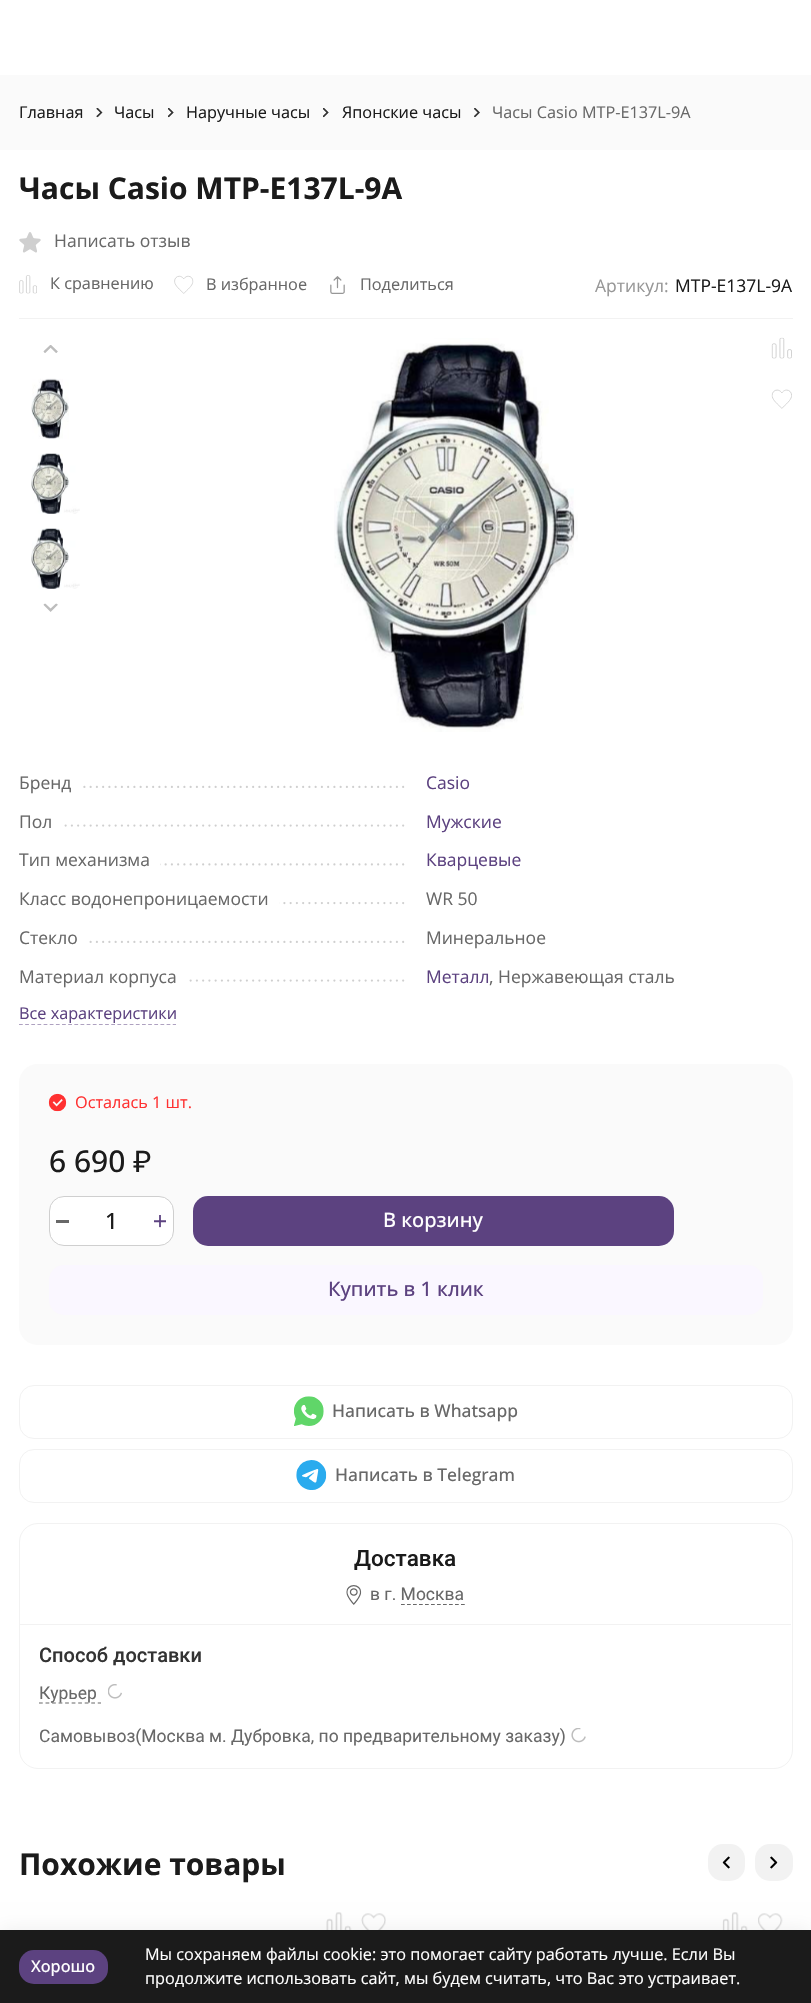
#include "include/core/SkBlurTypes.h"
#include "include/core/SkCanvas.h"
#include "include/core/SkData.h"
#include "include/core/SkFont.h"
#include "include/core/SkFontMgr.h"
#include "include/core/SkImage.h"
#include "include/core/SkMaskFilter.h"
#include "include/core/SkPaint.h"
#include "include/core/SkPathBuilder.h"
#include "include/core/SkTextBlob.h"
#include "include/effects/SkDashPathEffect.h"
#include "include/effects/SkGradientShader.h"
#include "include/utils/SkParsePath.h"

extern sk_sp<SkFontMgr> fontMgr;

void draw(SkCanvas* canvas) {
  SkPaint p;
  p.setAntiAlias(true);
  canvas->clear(SK_ColorWHITE);
  p.setColor(SkColorSetRGB(250, 250, 250));
  canvas->drawRect(SkRect::MakeLTRB(0, 75, 811, 150), p);
  canvas->drawImageRect(SkImages::DeferredFromEncodedData(SkData::MakeFromFileName("images/1.png")), SkRect::MakeLTRB(96, 108, 103, 118), SkSamplingOptions());
  canvas->drawImageRect(SkImages::DeferredFromEncodedData(SkData::MakeFromFileName("images/2.png")), SkRect::MakeLTRB(168, 108, 174, 118), SkSamplingOptions());
  canvas->drawImageRect(SkImages::DeferredFromEncodedData(SkData::MakeFromFileName("images/2.png")), SkRect::MakeLTRB(323, 108, 329, 118), SkSamplingOptions());
  canvas->drawImageRect(SkImages::DeferredFromEncodedData(SkData::MakeFromFileName("images/3.png")), SkRect::MakeLTRB(474, 108, 480, 118), SkSamplingOptions());
  p.setColor(SkColorSetRGB(242, 242, 242));
  canvas->drawRect(SkRect::MakeLTRB(19, 318, 793, 319), p);
  canvas->drawImageRect(SkImages::DeferredFromEncodedData(SkData::MakeFromFileName("images/4.png")), SkRect::MakeLTRB(19, 232, 41, 253), SkSamplingOptions());
  canvas->drawImageRect(SkImages::DeferredFromEncodedData(SkData::MakeFromFileName("images/5.png")), SkRect::MakeLTRB(19, 275, 37, 294), SkSamplingOptions());
  canvas->drawImageRect(SkImages::DeferredFromEncodedData(SkData::MakeFromFileName("images/6.png")), SkRect::MakeLTRB(174, 275, 194, 294), SkSamplingOptions());
  canvas->drawImageRect(SkImages::DeferredFromEncodedData(SkData::MakeFromFileName("images/7.png")), SkRect::MakeLTRB(330, 276, 345, 294), SkSamplingOptions());
  canvas->drawImageRect(SkImages::DeferredFromEncodedData(SkData::MakeFromFileName("images/8.png")), SkRect::MakeLTRB(43, 345, 58, 353), SkSamplingOptions());
  canvas->drawImageRect(SkImages::DeferredFromEncodedData(SkData::MakeFromFileName("images/9.png")), SkRect::MakeLTRB(31, 378, 69, 439), SkSamplingOptions());
  canvas->drawImageRect(SkImages::DeferredFromEncodedData(SkData::MakeFromFileName("images/10.png")), SkRect::MakeLTRB(31, 453, 80, 514), SkSamplingOptions());
  canvas->drawImageRect(SkImages::DeferredFromEncodedData(SkData::MakeFromFileName("images/11.png")), SkRect::MakeLTRB(31, 528, 80, 589), SkSamplingOptions());
  canvas->drawImageRect(SkImages::DeferredFromEncodedData(SkData::MakeFromFileName("images/12.png")), SkRect::MakeLTRB(43, 603, 58, 612), SkSamplingOptions());
  canvas->drawImageRect(SkImages::DeferredFromEncodedData(SkData::MakeFromFileName("images/13.png")), SkRect::MakeLTRB(334, 338, 578, 732), SkSamplingOptions());
  canvas->drawImageRect(SkImages::DeferredFromEncodedData(SkData::MakeFromFileName("images/14.png")), SkRect::MakeLTRB(771, 337, 792, 359), SkSamplingOptions());
  canvas->drawImageRect(SkImages::DeferredFromEncodedData(SkData::MakeFromFileName("images/15.png")), SkRect::MakeLTRB(771, 389, 792, 409), SkSamplingOptions());
  p.setStyle(SkPaint::kStroke_Style);
  p.setStrokeWidth(2.2f);
  p.setStrokeCap(SkPaint::kRound_Cap);
  p.setColor(SkColorSetRGB(207, 207, 207));
  p.setPathEffect(SkDashPathEffect::Make({{0, 6.25f}}, 0));
  canvas->drawPath(SkPathBuilder().moveTo(21.9f, 786.9f).lineTo(403.4f, 786.9f).detach(), p);
  p.setPathEffect(nullptr);
  p.setStyle(SkPaint::kFill_Style);
  p.setColor(SK_ColorWHITE);
  canvas->drawRect(SkRect::MakeLTRB(20, 785, 80, 788), p);
  p.setStyle(SkPaint::kStroke_Style);
  p.setColor(SkColorSetRGB(207, 207, 207));
  p.setPathEffect(SkDashPathEffect::Make({{0, 6.25f}}, 0));
  canvas->drawPath(SkPathBuilder().moveTo(21.9f, 825.6f).lineTo(403.4f, 825.6f).detach(), p);
  p.setPathEffect(nullptr);
  p.setStyle(SkPaint::kFill_Style);
  p.setColor(SK_ColorWHITE);
  canvas->drawRect(SkRect::MakeLTRB(20, 824, 61, 827), p);
  p.setStyle(SkPaint::kStroke_Style);
  p.setColor(SkColorSetRGB(207, 207, 207));
  p.setPathEffect(SkDashPathEffect::Make({{0, 6.25f}}, 0));
  canvas->drawPath(SkPathBuilder().moveTo(21.9f, 864.4f).lineTo(403.4f, 864.4f).detach(), p);
  p.setPathEffect(nullptr);
  p.setStyle(SkPaint::kFill_Style);
  p.setColor(SK_ColorWHITE);
  canvas->drawRect(SkRect::MakeLTRB(20, 863, 160, 866), p);
  p.setStyle(SkPaint::kStroke_Style);
  p.setColor(SkColorSetRGB(207, 207, 207));
  p.setPathEffect(SkDashPathEffect::Make({{0, 6.25f}}, 0));
  canvas->drawPath(SkPathBuilder().moveTo(21.9f, 903.1f).lineTo(403.4f, 903.1f).detach(), p);
  p.setPathEffect(nullptr);
  p.setStyle(SkPaint::kFill_Style);
  p.setColor(SK_ColorWHITE);
  canvas->drawRect(SkRect::MakeLTRB(20, 902, 279, 905), p);
  p.setStyle(SkPaint::kStroke_Style);
  p.setColor(SkColorSetRGB(207, 207, 207));
  p.setPathEffect(SkDashPathEffect::Make({{0, 6.25f}}, 0));
  canvas->drawPath(SkPathBuilder().moveTo(21.9f, 941.9f).lineTo(403.4f, 941.9f).detach(), p);
  p.setPathEffect(nullptr);
  p.setStyle(SkPaint::kFill_Style);
  p.setColor(SK_ColorWHITE);
  canvas->drawRect(SkRect::MakeLTRB(20, 940, 86, 943), p);
  p.setStyle(SkPaint::kStroke_Style);
  p.setColor(SkColorSetRGB(207, 207, 207));
  p.setPathEffect(SkDashPathEffect::Make({{0, 6.25f}}, 0));
  canvas->drawPath(SkPathBuilder().moveTo(21.9f, 980.6f).lineTo(403.4f, 980.6f).detach(), p);
  p.setPathEffect(nullptr);
  p.setStyle(SkPaint::kFill_Style);
  p.setColor(SK_ColorWHITE);
  canvas->drawRect(SkRect::MakeLTRB(20, 979, 186, 982), p);
  p.setStyle(SkPaint::kStroke_Style);
  p.setStrokeWidth(1.2f);
  p.setStrokeCap(SkPaint::kButt_Cap);
  p.setColor(SkColorSetRGB(174, 161, 192));
  p.setPathEffect(SkDashPathEffect::Make({{3.75f, 2.4f}}, 0));
  canvas->drawPath(SkPathBuilder().moveTo(19, 1024.5f).lineTo(176, 1024.5f).detach(), p);
  p.setPathEffect(nullptr);
  p.setStyle(SkPaint::kFill_Style);
  p.setColor(SkColorSetRGB(250, 250, 250));
  canvas->drawRoundRect(SkRect::MakeLTRB(19, 1064, 793, 1345), 19, 19, p);
  canvas->drawImageRect(SkImages::DeferredFromEncodedData(SkData::MakeFromFileName("images/16.png")), SkRect::MakeLTRB(48, 1093, 67, 1112), SkSamplingOptions());
  p.setColor(SK_ColorWHITE);
  canvas->drawRoundRect(SkRect::MakeLTRB(49.5f, 1196.5f, 173.5f, 1245.5f), 14.5f, 14.5f, p);
  p.setStyle(SkPaint::kStroke_Style);
  p.setStrokeWidth(1);
  p.setColor(SkColorSetRGB(207, 207, 207));
  canvas->drawRoundRect(SkRect::MakeLTRB(49.5f, 1196.5f, 173.5f, 1245.5f), 14.5f, 14.5f, p);
  p.setStyle(SkPaint::kFill_Style);
  p.setColor(SkColorSetRGB(104, 104, 104));
  canvas->drawRect(SkRect::MakeLTRB(56, 1220, 69, 1223), p);
  canvas->drawImageRect(SkImages::DeferredFromEncodedData(SkData::MakeFromFileName("images/17.png")), SkRect::MakeLTRB(154, 1215, 166, 1228), SkSamplingOptions());
  p.setColor(SkColorSetRGB(92, 66, 128));
  canvas->drawRoundRect(SkRect::MakeLTRB(193, 1196, 674, 1246), 15, 15, p);
  p.setColor(SkColorSetRGB(250, 247, 255));
  canvas->drawRoundRect(SkRect::MakeLTRB(49, 1265, 763, 1315), 15, 15, p);
  p.setStyle(SkPaint::kStroke_Style);
  p.setColor(SkColorSetRGB(242, 242, 242));
  canvas->drawRoundRect(SkRect::MakeLTRB(19.5f, 1385.5f, 792.5f, 1438.5f), 14.5f, 14.5f, p);
  canvas->drawImageRect(SkImages::DeferredFromEncodedData(SkData::MakeFromFileName("images/18.png")), SkRect::MakeLTRB(294, 1396, 324, 1426), SkSamplingOptions());
  canvas->drawRoundRect(SkRect::MakeLTRB(19.5f, 1449.5f, 792.5f, 1502.5f), 14.5f, 14.5f, p);
  canvas->drawImageRect(SkImages::DeferredFromEncodedData(SkData::MakeFromFileName("images/19.png")), SkRect::MakeLTRB(296, 1460, 327, 1490), SkSamplingOptions());
  canvas->drawRoundRect(SkRect::MakeLTRB(19.5f, 1523.5f, 792.5f, 1768.5f), 18.5f, 18.5f, p);
  p.setStyle(SkPaint::kFill_Style);
  canvas->drawRect(SkRect::MakeLTRB(20, 1624, 791, 1625), p);
  canvas->drawImageRect(SkImages::DeferredFromEncodedData(SkData::MakeFromFileName("images/20.png")), SkRect::MakeLTRB(346, 1585, 362, 1605), SkSamplingOptions());
  p.setStyle(SkPaint::kStroke_Style);
  p.setStrokeWidth(1.2f);
  p.setColor(SkColorSetRGB(104, 104, 104));
  p.setPathEffect(SkDashPathEffect::Make({{3.75f, 2.25f}}, 0));
  canvas->drawPath(SkPathBuilder().moveTo(401, 1604.5f).lineTo(465, 1604.5f).detach(), p);
  p.setPathEffect(nullptr);
  p.setPathEffect(SkDashPathEffect::Make({{3.75f, 2.78f}}, 0));
  canvas->drawPath(SkPathBuilder().moveTo(39, 1703).lineTo(101, 1703).detach(), p);
  p.setPathEffect(nullptr);
  canvas->drawImageRect(SkImages::DeferredFromEncodedData(SkData::MakeFromFileName("images/21.png")), SkRect::MakeLTRB(108, 1684, 122, 1699), SkSamplingOptions());
  canvas->drawImageRect(SkImages::DeferredFromEncodedData(SkData::MakeFromFileName("images/22.png")), SkRect::MakeLTRB(571, 1728, 586, 1743), SkSamplingOptions());
  p.setStyle(SkPaint::kFill_Style);
  p.setColor(SkColorSetRGB(242, 242, 242));
  canvas->drawRoundRect(SkRect::MakeLTRB(708, 1844, 745, 1881), 15, 15, p);
  canvas->drawImageRect(SkImages::DeferredFromEncodedData(SkData::MakeFromFileName("images/23.png")), SkRect::MakeLTRB(722, 1856, 730, 1869), SkSamplingOptions());
  canvas->drawRoundRect(SkRect::MakeLTRB(755, 1844, 793, 1881), 15, 15, p);
  canvas->drawImageRect(SkImages::DeferredFromEncodedData(SkData::MakeFromFileName("images/24.png")), SkRect::MakeLTRB(770, 1856, 778, 1869), SkSamplingOptions());
  canvas->drawImageRect(SkImages::DeferredFromEncodedData(SkData::MakeFromFileName("images/25.png")), SkRect::MakeLTRB(326, 1912, 352, 1930), SkSamplingOptions());
  canvas->drawImageRect(SkImages::DeferredFromEncodedData(SkData::MakeFromFileName("images/26.png")), SkRect::MakeLTRB(361, 1913, 386, 1930), SkSamplingOptions());
  canvas->drawImageRect(SkImages::DeferredFromEncodedData(SkData::MakeFromFileName("images/27.png")), SkRect::MakeLTRB(722, 1912, 748, 1930), SkSamplingOptions());
  canvas->drawImageRect(SkImages::DeferredFromEncodedData(SkData::MakeFromFileName("images/28.png")), SkRect::MakeLTRB(758, 1913, 783, 1930), SkSamplingOptions());
  p.setColor(SkColorSetARGB(18, 0, 0, 0));
  p.setMaskFilter(SkMaskFilter::MakeBlur(kNormal_SkBlurStyle, 9.5f));
  canvas->drawRect(SkRect::MakeLTRB(0, 1930, 811, 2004), p);
  p.setMaskFilter(nullptr);
  p.setColor(SkColorSetRGB(27, 27, 27));
  canvas->drawRect(SkRect::MakeLTRB(0, 1930, 811, 2003), p);
  p.setColor(SkColorSetRGB(92, 66, 128));
  canvas->drawRoundRect(SkRect::MakeLTRB(19, 1950, 108, 1984), 15, 15, p);
  SkFont font1(fontMgr->matchFamilyStyle("Open Sans", SkFontStyle::Normal()), 16.25f);
  font1.setSubpixel(true);
  p.setColor(SkColorSetRGB(27, 27, 27));
  canvas->drawString("Главная", 19, 118, font1, p);
  canvas->drawString("Часы", 114, 118, font1, p);
  canvas->drawString("Наручные часы", 186, 118, font1, p);
  canvas->drawString("Японские часы", 342, 118, font1, p);
  p.setColor(SkColorSetRGB(104, 104, 104));
  canvas->drawString("Часы Casio MTP-E137L-9A", 492, 118, font1, p);
  SkFont font2(fontMgr->matchFamilyStyle("Open Sans", SkFontStyle::Bold()), 30);
  font2.setSubpixel(true);
  p.setColor(SkColorSetRGB(27, 27, 27));
  canvas->drawString("Часы Casio MTP-E137L-9A", 19, 199, font2, p);
  SkFont font3(fontMgr->matchFamilyStyle("Open Sans", SkFontStyle::Normal()), 17.5f);
  font3.setSubpixel(true);
  p.setColor(SkColorSetRGB(104, 104, 104));
  canvas->drawString("Написать отзыв", 54, 247, font3, p);
  canvas->drawString("К сравнению", 50, 289, font1, p);
  canvas->drawString("В избранное", 206, 290, font1, p);
  canvas->drawString("Поделиться", 360, 290, font1, p);
  p.setColor(SkColorSetRGB(151, 151, 151));
  canvas->drawString("Артикул:", 595, 292, font3, p);
  p.setColor(SkColorSetRGB(27, 27, 27));
  canvas->drawString("MTP-E137L-9A", 675, 292, font3, p);
  p.setColor(SkColorSetRGB(104, 104, 104));
  canvas->drawString("Бренд", 19, 789, font3, p);
  p.setColor(SkColorSetRGB(92, 66, 128));
  canvas->drawString("Casio", 426, 789, font3, p);
  p.setColor(SkColorSetRGB(104, 104, 104));
  canvas->drawString("Пол", 19, 828, font3, p);
  p.setColor(SkColorSetRGB(92, 66, 128));
  canvas->drawString("Мужские", 426, 828, font3, p);
  p.setColor(SkColorSetRGB(104, 104, 104));
  canvas->drawString("Тип механизма", 19, 866, font3, p);
  p.setColor(SkColorSetRGB(92, 66, 128));
  canvas->drawString("Кварцевые", 426, 866, font3, p);
  p.setColor(SkColorSetRGB(104, 104, 104));
  canvas->drawString("Класс водонепроницаемости", 19, 905, font3, p);
  canvas->drawString("WR 50", 426, 905, font3, p);
  canvas->drawString("Стекло", 19, 944, font3, p);
  canvas->drawString("Минеральное", 426, 944, font3, p);
  canvas->drawString("Материал корпуса", 19, 983, font3, p);
  p.setColor(SkColorSetRGB(92, 66, 128));
  canvas->drawString("Металл", 426, 983, font3, p);
  p.setColor(SkColorSetRGB(104, 104, 104));
  canvas->drawString(", Нержавеющая сталь", 489, 983, font3, p);
  p.setColor(SkColorSetRGB(92, 66, 128));
  canvas->drawString("Все характеристики", 19, 1019, font1, p);
  p.setColor(SkColorSetRGB(255, 49, 49));
  canvas->drawString("Осталась 1 шт.", 75, 1108, font1, p);
  SkFont font4(fontMgr->matchFamilyStyle("Open Sans", SkFontStyle(500, SkFontStyle::kNormal_Width, SkFontStyle::kUpright_Slant)), 30);
  font4.setSubpixel(true);
  p.setColor(SkColorSetRGB(27, 27, 27));
  canvas->drawString("6 690", 49, 1172, font4, p);
  SkFont font5(fontMgr->matchFamilyStyle("Nunito Sans", SkFontStyle(500, SkFontStyle::kNormal_Width, SkFontStyle::kUpright_Slant)), 30);
  font5.setSubpixel(true);
  canvas->drawString("₽", 133, 1172, font5, p);
  SkFont font6(fontMgr->matchFamilyStyle("Open Sans", SkFontStyle(500, SkFontStyle::kNormal_Width, SkFontStyle::kUpright_Slant)), 22.5f);
  font6.setSubpixel(true);
  canvas->drawString("1", 105, 1229, font6, p);
  SkFont font7(fontMgr->matchFamilyStyle("Open Sans", SkFontStyle(500, SkFontStyle::kNormal_Width, SkFontStyle::kUpright_Slant)), 20);
  font7.setSubpixel(true);
  p.setColor(SK_ColorWHITE);
  canvas->drawString("В корзину", 383, 1227, font7, p);
  p.setColor(SkColorSetRGB(92, 66, 128));
  canvas->drawString("Купить в 1 клик", 328, 1296, font7, p);
  SkFont font8(fontMgr->matchFamilyStyle("Open Sans", SkFontStyle(500, SkFontStyle::kNormal_Width, SkFontStyle::kUpright_Slant)), 17.5f);
  font8.setSubpixel(true);
  p.setColor(SkColorSetRGB(104, 104, 104));
  canvas->drawString("Написать в Whatsapp", 332, 1417, font8, p);
  canvas->drawString("Написать в Telegram", 335, 1481, font8, p);
  SkFont font9(fontMgr->matchFamilyStyle("Roboto", SkFontStyle(500, SkFontStyle::kNormal_Width, SkFontStyle::kUpright_Slant)), 22.5f);
  font9.setSubpixel(true);
  p.setColor(SkColorSetRGB(27, 27, 27));
  canvas->drawString("Доставка", 354, 1566, font9, p);
  SkFont font10(fontMgr->matchFamilyStyle("Roboto", SkFontStyle::Normal()), 17.5f);
  font10.setSubpixel(true);
  p.setColor(SkColorSetRGB(104, 104, 104));
  canvas->drawString("в г. Москва", 370, 1600, font10, p);
  SkFont font11(fontMgr->matchFamilyStyle("Roboto", SkFontStyle(500, SkFontStyle::kNormal_Width, SkFontStyle::kUpright_Slant)), 20);
  font11.setSubpixel(true);
  p.setColor(SkColorSetRGB(51, 51, 51));
  canvas->drawString("Способ доставки", 39, 1662, font11, p);
  p.setColor(SkColorSetRGB(104, 104, 104));
  canvas->drawString("Курьер", 39, 1699, font10, p);
  canvas->drawString("Самовывоз(Москва м. Дубровка, по предварительному заказу)", 39, 1742, font10, p);
  p.setColor(SkColorSetRGB(27, 27, 27));
  canvas->drawString("Похожие товары", 19, 1875, font2, p);
  SkFont font12(fontMgr->matchFamilyStyle("Open Sans", SkFontStyle(500, SkFontStyle::kNormal_Width, SkFontStyle::kUpright_Slant)), 16.25f);
  font12.setSubpixel(true);
  p.setColor(SK_ColorWHITE);
  canvas->drawString("Хорошо", 31, 1972, font12, p);
  canvas->drawString("Мы сохраняем файлы cookie: это помогает сайту работать лучше. Если Вы", 145, 1960, font1, p);
  canvas->drawString("продолжите использовать сайт, мы будем считать, что Вас это устраивает.", 145, 1984, font1, p);
}
